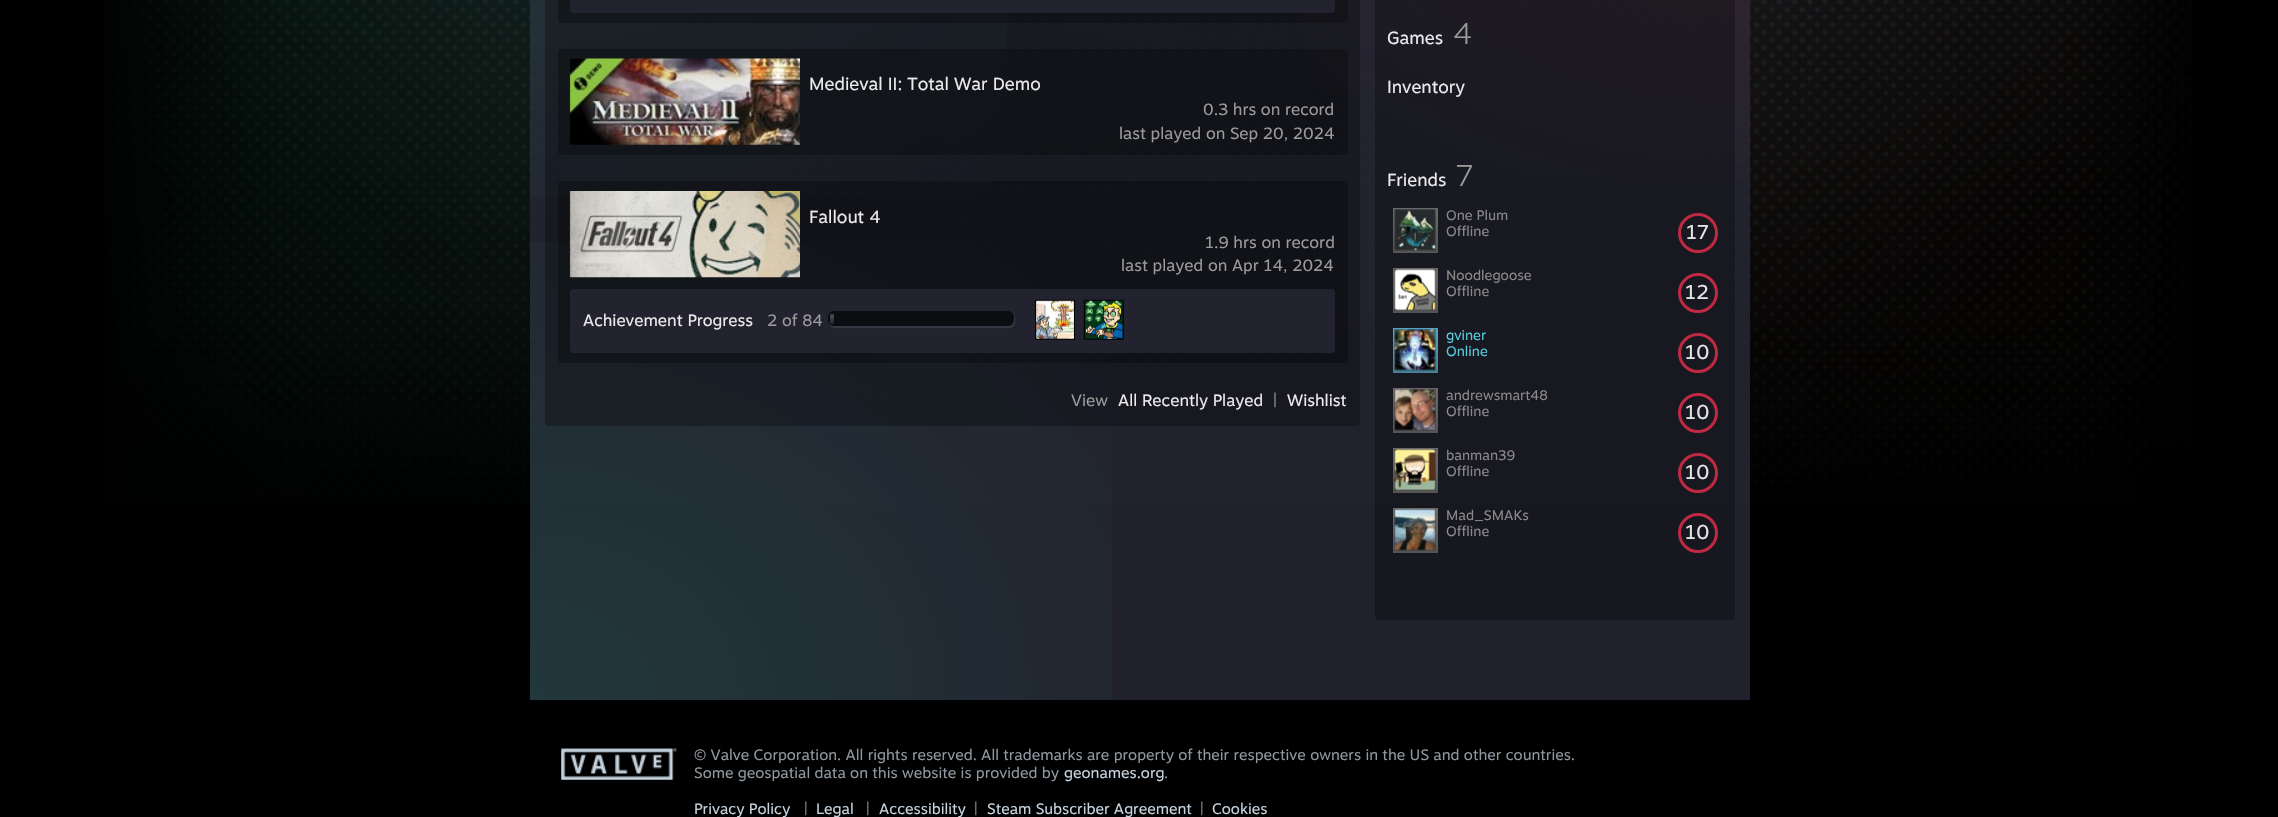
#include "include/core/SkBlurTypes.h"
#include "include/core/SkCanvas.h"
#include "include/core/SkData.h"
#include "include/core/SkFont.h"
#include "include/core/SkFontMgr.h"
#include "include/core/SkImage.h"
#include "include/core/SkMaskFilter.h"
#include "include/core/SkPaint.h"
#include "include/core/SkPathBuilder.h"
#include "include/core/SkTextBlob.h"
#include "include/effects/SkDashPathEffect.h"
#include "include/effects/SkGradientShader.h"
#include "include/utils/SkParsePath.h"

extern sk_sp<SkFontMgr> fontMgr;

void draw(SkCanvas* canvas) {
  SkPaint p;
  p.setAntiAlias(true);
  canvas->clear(SK_ColorBLACK);
  canvas->drawImageRect(SkImages::DeferredFromEncodedData(SkData::MakeFromFileName("images/1.png")), SkRect::MakeLTRB(103, 0, 2192, 505), SkSamplingOptions());
  p.setColor(SkColorSetARGB(237, 34, 35, 48));
  canvas->drawRect(SkRect::MakeLTRB(530, 0, 1750, 700), p);
  {
    const SkColor colors[] = {SkColorSetARGB(26, 50, 255, 193), SkColorSetARGB(0, 50, 255, 193)};
    const float stops[] = {0, 0.43f};
    SkMatrix m = SkMatrix::Translate(530, 700).preScale(1725, 1356);
    p.setShader(SkGradientShader::MakeRadial({0, 0}, 1, colors, stops, 2, SkTileMode::kClamp, 0, &m));
    p.setAlpha(255);
  }
  canvas->drawRect(SkRect::MakeLTRB(530, 242, 1112, 700), p);
  {
    const SkColor colors[] = {SkColorSetARGB(26, 50, 255, 193), SkColorSetARGB(0, 50, 255, 193)};
    const float stops[] = {0, 0.43f};
    SkMatrix m = SkMatrix::Translate(530, -259).preScale(1725, 1356);
    p.setShader(SkGradientShader::MakeRadial({0, 0}, 1, colors, stops, 2, SkTileMode::kClamp, 0, &m));
    p.setAlpha(255);
  }
  canvas->drawRect(SkRect::MakeLTRB(530, 0, 1007, 197), p);
  {
    const SkColor colors[] = {SkColorSetARGB(77, 109, 38, 44), SkColorSetARGB(0, 109, 38, 44)};
    const float stops[] = {0, 0.51f};
    SkMatrix m = SkMatrix::Translate(1750, -259).preScale(1220, 959);
    p.setShader(SkGradientShader::MakeRadial({0, 0}, 1, colors, stops, 2, SkTileMode::kClamp, 0, &m));
    p.setAlpha(255);
  }
  canvas->drawRect(SkRect::MakeLTRB(1305, 0, 1750, 178), p);
  p.setShader(nullptr);
  p.setColor(SkColorSetARGB(77, 0, 0, 0));
  canvas->drawRoundRect(SkRect::MakeLTRB(545, -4, 1360, 426), 4, 4, p);
  canvas->drawRoundRect(SkRect::MakeLTRB(558, -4, 1348, 23), 4, 4, p);
  p.setColor(SkColorSetARGB(237, 34, 35, 48));
  canvas->drawRoundRect(SkRect::MakeLTRB(570, -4, 1335, 13), 4, 4, p);
  p.setColor(SkColorSetARGB(77, 0, 0, 0));
  canvas->drawRoundRect(SkRect::MakeLTRB(558, 49, 1348, 155), 4, 4, p);
  canvas->drawImageRect(SkImages::DeferredFromEncodedData(SkData::MakeFromFileName("images/2.png")), SkRect::MakeLTRB(569, 58, 800, 145), SkSamplingOptions());
  canvas->drawRoundRect(SkRect::MakeLTRB(558, 181, 1348, 363), 4, 4, p);
  canvas->drawImageRect(SkImages::DeferredFromEncodedData(SkData::MakeFromFileName("images/3.png")), SkRect::MakeLTRB(569, 191, 800, 278), SkSamplingOptions());
  p.setColor(SkColorSetARGB(237, 34, 35, 48));
  canvas->drawRoundRect(SkRect::MakeLTRB(570, 289, 1335, 353), 4, 4, p);
  canvas->save();
  canvas->clipPath(SkPathBuilder(SkPathFillType::kEvenOdd).moveTo(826, 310).lineTo(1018, 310).lineTo(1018, 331).lineTo(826, 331).close().moveTo(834, 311).lineTo(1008, 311).cubicTo(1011.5f, 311, 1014, 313.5f, 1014, 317).lineTo(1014, 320).cubicTo(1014, 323.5f, 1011.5f, 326, 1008, 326).lineTo(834, 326).cubicTo(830.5f, 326, 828, 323.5f, 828, 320).lineTo(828, 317).cubicTo(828, 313.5f, 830.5f, 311, 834, 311).close().detach(), true);
  p.setColor(SkColorSetARGB(26, 255, 255, 255));
  p.setMaskFilter(SkMaskFilter::MakeBlur(kNormal_SkBlurStyle, 0.5f));
  canvas->drawRoundRect(SkRect::MakeLTRB(829, 313, 1015, 328), 6, 6, p);
  p.setMaskFilter(nullptr);
  canvas->restore();
  p.setColor(SkColorSetARGB(77, 0, 0, 0));
  canvas->drawRoundRect(SkRect::MakeLTRB(828, 311, 1014, 326), 6, 6, p);
  p.setColor(SkColorSetARGB(128, 0, 0, 0));
  canvas->drawPath(SkPathBuilder().moveTo(834, 311).lineTo(1008, 311).cubicTo(1011, 311, 1014, 314, 1014, 317).cubicTo(1014, 321, 1013, 326, 1008, 326).lineTo(834, 326).lineTo(831, 325).cubicTo(826, 322, 827, 311, 834, 311).close().detach(), p);
  {
    const SkColor colors[] = {SkColorSetRGB(85, 85, 88), SkColorSetRGB(41, 43, 64)};
    const float stops[] = {0, 0.8f};
    const SkPoint ends[] = {{832, 314}, {832, 324}};
    p.setShader(SkGradientShader::MakeLinear(ends, colors, stops, 2, SkTileMode::kClamp));
    p.setAlpha(255);
  }
  canvas->drawRoundRect(SkRect::MakeLTRB(830, 314, 834, 324), 2, 2, p);
  canvas->drawImageRect(SkImages::DeferredFromEncodedData(SkData::MakeFromFileName("images/4.png")), SkRect::MakeLTRB(1035, 299, 1075, 340), SkSamplingOptions());
  canvas->drawImageRect(SkImages::DeferredFromEncodedData(SkData::MakeFromFileName("images/5.png")), SkRect::MakeLTRB(1083, 299, 1124, 340), SkSamplingOptions());
  p.setShader(nullptr);
  p.setColor(SkColorSetARGB(77, 0, 0, 0));
  canvas->drawRoundRect(SkRect::MakeLTRB(1375, -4, 1735, 620), 4, 4, p);
  {
    const SkColor colors[] = {SkColorSetRGB(106, 106, 106), SkColorSetRGB(85, 85, 85)};
    const float stops[] = {0.05f, 0.95f};
    const SkPoint ends[] = {{1415, 208}, {1415, 253}};
    p.setShader(SkGradientShader::MakeLinear(ends, colors, stops, 2, SkTileMode::kClamp));
    p.setAlpha(255);
  }
  canvas->drawRect(SkRect::MakeLTRB(1393, 208, 1438, 253), p);
  {
    const SkColor colors[] = {SkColorSetRGB(81, 81, 81), SkColorSetRGB(71, 71, 71)};
    const float stops[] = {0.05f, 0.95f};
    const SkPoint ends[] = {{1415, 209}, {1415, 251}};
    p.setShader(SkGradientShader::MakeLinear(ends, colors, stops, 2, SkTileMode::kClamp));
    p.setAlpha(255);
  }
  canvas->drawRect(SkRect::MakeLTRB(1394, 209, 1436, 251), p);
  canvas->drawImageRect(SkImages::DeferredFromEncodedData(SkData::MakeFromFileName("images/6.png")), SkRect::MakeLTRB(1394, 209, 1436, 251), SkSamplingOptions());
  p.setStyle(SkPaint::kStroke_Style);
  p.setStrokeWidth(3);
  p.setShader(nullptr);
  p.setColor(SkColorSetRGB(192, 41, 66));
  canvas->drawCircle(1698, 233, 18.5f, p);
  p.setStyle(SkPaint::kFill_Style);
  {
    const SkColor colors[] = {SkColorSetRGB(106, 106, 106), SkColorSetRGB(85, 85, 85)};
    const float stops[] = {0.05f, 0.95f};
    const SkPoint ends[] = {{1415, 268}, {1415, 313}};
    p.setShader(SkGradientShader::MakeLinear(ends, colors, stops, 2, SkTileMode::kClamp));
    p.setAlpha(255);
  }
  canvas->drawRect(SkRect::MakeLTRB(1393, 268, 1438, 313), p);
  {
    const SkColor colors[] = {SkColorSetRGB(81, 81, 81), SkColorSetRGB(71, 71, 71)};
    const float stops[] = {0.05f, 0.95f};
    const SkPoint ends[] = {{1415, 269}, {1415, 311}};
    p.setShader(SkGradientShader::MakeLinear(ends, colors, stops, 2, SkTileMode::kClamp));
    p.setAlpha(255);
  }
  canvas->drawRect(SkRect::MakeLTRB(1394, 269, 1436, 311), p);
  canvas->drawImageRect(SkImages::DeferredFromEncodedData(SkData::MakeFromFileName("images/7.png")), SkRect::MakeLTRB(1394, 269, 1436, 311), SkSamplingOptions());
  p.setStyle(SkPaint::kStroke_Style);
  p.setShader(nullptr);
  p.setColor(SkColorSetRGB(192, 41, 66));
  canvas->drawCircle(1698, 293, 18.5f, p);
  p.setStyle(SkPaint::kFill_Style);
  {
    const SkColor colors[] = {SkColorSetRGB(83, 164, 196), SkColorSetRGB(69, 128, 151)};
    const float stops[] = {0.05f, 0.95f};
    const SkPoint ends[] = {{1415, 328}, {1415, 373}};
    p.setShader(SkGradientShader::MakeLinear(ends, colors, stops, 2, SkTileMode::kClamp));
    p.setAlpha(255);
  }
  canvas->drawRect(SkRect::MakeLTRB(1393, 328, 1438, 373), p);
  {
    const SkColor colors[] = {SkColorSetRGB(65, 119, 143), SkColorSetRGB(61, 105, 123)};
    const float stops[] = {0.05f, 0.95f};
    const SkPoint ends[] = {{1415, 329}, {1415, 371}};
    p.setShader(SkGradientShader::MakeLinear(ends, colors, stops, 2, SkTileMode::kClamp));
    p.setAlpha(255);
  }
  canvas->drawRect(SkRect::MakeLTRB(1394, 329, 1436, 371), p);
  canvas->drawImageRect(SkImages::DeferredFromEncodedData(SkData::MakeFromFileName("images/8.png")), SkRect::MakeLTRB(1394, 329, 1436, 371), SkSamplingOptions());
  p.setStyle(SkPaint::kStroke_Style);
  p.setShader(nullptr);
  p.setColor(SkColorSetRGB(192, 41, 66));
  canvas->drawCircle(1698, 353, 18.5f, p);
  p.setStyle(SkPaint::kFill_Style);
  {
    const SkColor colors[] = {SkColorSetRGB(106, 106, 106), SkColorSetRGB(85, 85, 85)};
    const float stops[] = {0.05f, 0.95f};
    const SkPoint ends[] = {{1415, 388}, {1415, 433}};
    p.setShader(SkGradientShader::MakeLinear(ends, colors, stops, 2, SkTileMode::kClamp));
    p.setAlpha(255);
  }
  canvas->drawRect(SkRect::MakeLTRB(1393, 388, 1438, 433), p);
  {
    const SkColor colors[] = {SkColorSetRGB(81, 81, 81), SkColorSetRGB(71, 71, 71)};
    const float stops[] = {0.05f, 0.95f};
    const SkPoint ends[] = {{1415, 389}, {1415, 431}};
    p.setShader(SkGradientShader::MakeLinear(ends, colors, stops, 2, SkTileMode::kClamp));
    p.setAlpha(255);
  }
  canvas->drawRect(SkRect::MakeLTRB(1394, 389, 1436, 431), p);
  canvas->drawImageRect(SkImages::DeferredFromEncodedData(SkData::MakeFromFileName("images/9.png")), SkRect::MakeLTRB(1394, 389, 1436, 431), SkSamplingOptions());
  p.setStyle(SkPaint::kStroke_Style);
  p.setShader(nullptr);
  p.setColor(SkColorSetRGB(192, 41, 66));
  canvas->drawCircle(1698, 413, 18.5f, p);
  p.setStyle(SkPaint::kFill_Style);
  {
    const SkColor colors[] = {SkColorSetRGB(106, 106, 106), SkColorSetRGB(85, 85, 85)};
    const float stops[] = {0.05f, 0.95f};
    const SkPoint ends[] = {{1415, 448}, {1415, 493}};
    p.setShader(SkGradientShader::MakeLinear(ends, colors, stops, 2, SkTileMode::kClamp));
    p.setAlpha(255);
  }
  canvas->drawRect(SkRect::MakeLTRB(1393, 448, 1438, 493), p);
  {
    const SkColor colors[] = {SkColorSetRGB(81, 81, 81), SkColorSetRGB(71, 71, 71)};
    const float stops[] = {0.05f, 0.95f};
    const SkPoint ends[] = {{1415, 449}, {1415, 491}};
    p.setShader(SkGradientShader::MakeLinear(ends, colors, stops, 2, SkTileMode::kClamp));
    p.setAlpha(255);
  }
  canvas->drawRect(SkRect::MakeLTRB(1394, 449, 1436, 491), p);
  canvas->drawImageRect(SkImages::DeferredFromEncodedData(SkData::MakeFromFileName("images/10.png")), SkRect::MakeLTRB(1394, 449, 1436, 491), SkSamplingOptions());
  p.setStyle(SkPaint::kStroke_Style);
  p.setShader(nullptr);
  p.setColor(SkColorSetRGB(192, 41, 66));
  canvas->drawCircle(1698, 473, 18.5f, p);
  p.setStyle(SkPaint::kFill_Style);
  {
    const SkColor colors[] = {SkColorSetRGB(106, 106, 106), SkColorSetRGB(85, 85, 85)};
    const float stops[] = {0.05f, 0.95f};
    const SkPoint ends[] = {{1415, 508}, {1415, 553}};
    p.setShader(SkGradientShader::MakeLinear(ends, colors, stops, 2, SkTileMode::kClamp));
    p.setAlpha(255);
  }
  canvas->drawRect(SkRect::MakeLTRB(1393, 508, 1438, 553), p);
  {
    const SkColor colors[] = {SkColorSetRGB(81, 81, 81), SkColorSetRGB(71, 71, 71)};
    const float stops[] = {0.05f, 0.95f};
    const SkPoint ends[] = {{1415, 509}, {1415, 551}};
    p.setShader(SkGradientShader::MakeLinear(ends, colors, stops, 2, SkTileMode::kClamp));
    p.setAlpha(255);
  }
  canvas->drawRect(SkRect::MakeLTRB(1394, 509, 1436, 551), p);
  canvas->drawImageRect(SkImages::DeferredFromEncodedData(SkData::MakeFromFileName("images/11.png")), SkRect::MakeLTRB(1394, 509, 1436, 551), SkSamplingOptions());
  p.setStyle(SkPaint::kStroke_Style);
  p.setShader(nullptr);
  p.setColor(SkColorSetRGB(192, 41, 66));
  canvas->drawCircle(1698, 533, 18.5f, p);
  canvas->drawImageRect(SkImages::DeferredFromEncodedData(SkData::MakeFromFileName("images/12.png")), SkRect::MakeLTRB(561, 748, 677, 780), SkSamplingOptions());
  SkFont font1(fontMgr->matchFamilyStyle("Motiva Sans", SkFontStyle::Normal()), 17.5f);
  font1.setSubpixel(true);
  p.setStyle(SkPaint::kFill_Style);
  p.setColor(SkColorSetRGB(235, 235, 235));
  canvas->drawString("Medieval II: Total War Demo", 809, 90, font1, p);
  SkFont font2(fontMgr->matchFamilyStyle("Motiva Sans", SkFontStyle::Normal()), 16.25f);
  font2.setSubpixel(true);
  p.setColor(SkColorSetRGB(155, 155, 155));
  canvas->drawString("0.3 hrs on record", 1203, 115, font2, p);
  canvas->drawString("last played on Sep 20, 2024", 1119, 139, font2, p);
  p.setColor(SkColorSetRGB(235, 235, 235));
  canvas->drawString("Fallout 4", 809, 223, font1, p);
  p.setColor(SkColorSetRGB(155, 155, 155));
  canvas->drawString("1.9 hrs on record", 1205, 248, font2, p);
  canvas->drawString("last played on Apr 14, 2024", 1121, 271, font2, p);
  p.setColor(SkColorSetRGB(235, 235, 235));
  canvas->drawString("Achievement Progress", 583, 326, font2, p);
  p.setColor(SkColorSetRGB(155, 155, 155));
  canvas->drawString("2 of 84", 767, 326, font2, p);
  canvas->drawString("View", 1071, 406, font2, p);
  p.setColor(SkColorSetRGB(235, 235, 235));
  canvas->drawString("All Recently Played", 1118, 406, font2, p);
  p.setColor(SkColorSetRGB(155, 155, 155));
  canvas->drawString("|", 1273, 406, font2, p);
  p.setColor(SkColorSetRGB(235, 235, 235));
  canvas->drawString("Wishlist", 1287, 406, font2, p);
  canvas->drawString("Games", 1387, 44, font1, p);
  SkFont font3(fontMgr->matchFamilyStyle("Motiva Sans", SkFontStyle(100, SkFontStyle::kNormal_Width, SkFontStyle::kUpright_Slant)), 30);
  font3.setSubpixel(true);
  p.setColor(SkColorSetRGB(155, 155, 155));
  canvas->drawString("4", 1453, 44, font3, p);
  p.setColor(SkColorSetRGB(235, 235, 235));
  canvas->drawString("Inventory", 1387, 93, font1, p);
  canvas->drawString("Friends", 1387, 186, font1, p);
  p.setColor(SkColorSetRGB(155, 155, 155));
  canvas->drawString("7", 1456, 186, font3, p);
  SkFont font4(fontMgr->matchFamilyStyle("Motiva Sans", SkFontStyle::Normal()), 13.75f);
  font4.setSubpixel(true);
  p.setColor(SkColorSetRGB(137, 137, 137));
  canvas->drawString("One Plum", 1446, 220, font4, p);
  canvas->drawString("Offline", 1446, 236, font4, p);
  SkFont font5(fontMgr->matchFamilyStyle("Motiva Sans", SkFontStyle::Normal()), 20);
  font5.setSubpixel(true);
  p.setColor(SkColorSetRGB(229, 229, 229));
  canvas->drawString("17", 1686, 239, font5, p);
  p.setColor(SkColorSetRGB(137, 137, 137));
  canvas->drawString("Noodlegoose", 1446, 280, font4, p);
  canvas->drawString("Offline", 1446, 296, font4, p);
  p.setColor(SkColorSetRGB(229, 229, 229));
  canvas->drawString("12", 1685, 299, font5, p);
  p.setColor(SkColorSetRGB(87, 203, 222));
  canvas->drawString("gviner", 1446, 340, font4, p);
  canvas->drawString("Online", 1446, 356, font4, p);
  p.setColor(SkColorSetRGB(229, 229, 229));
  canvas->drawString("10", 1685, 359, font5, p);
  p.setColor(SkColorSetRGB(137, 137, 137));
  canvas->drawString("andrewsmart48", 1446, 400, font4, p);
  canvas->drawString("Offline", 1446, 416, font4, p);
  p.setColor(SkColorSetRGB(229, 229, 229));
  canvas->drawString("10", 1685, 419, font5, p);
  p.setColor(SkColorSetRGB(137, 137, 137));
  canvas->drawString("banman39", 1446, 460, font4, p);
  canvas->drawString("Offline", 1446, 476, font4, p);
  p.setColor(SkColorSetRGB(229, 229, 229));
  canvas->drawString("10", 1685, 479, font5, p);
  p.setColor(SkColorSetRGB(137, 137, 137));
  canvas->drawString("Mad_SMAKs", 1446, 520, font4, p);
  canvas->drawString("Offline", 1446, 536, font4, p);
  p.setColor(SkColorSetRGB(229, 229, 229));
  canvas->drawString("10", 1685, 539, font5, p);
  SkFont font6(fontMgr->matchFamilyStyle("Motiva Sans", SkFontStyle::Normal()), 15);
  font6.setSubpixel(true);
  p.setColor(SkColorSetRGB(143, 152, 160));
  canvas->drawString("© Valve Corporation. All rights reserved. All trademarks are property of their respective owners in the US and other countries.", 694, 760, font6, p);
  canvas->drawString("Some geospatial data on this website is provided by", 694, 778, font6, p);
  p.setColor(SkColorSetRGB(198, 212, 223));
  canvas->drawString("geonames.org", 1064, 778, font6, p);
  p.setColor(SkColorSetRGB(143, 152, 160));
  canvas->drawString(".", 1164, 778, font6, p);
  p.setColor(SkColorSetRGB(198, 212, 223));
  canvas->drawString("Privacy Policy", 694, 814, font6, p);
  p.setColor(SkColorSetRGB(143, 152, 160));
  canvas->drawString("|", 804, 814, font6, p);
  p.setColor(SkColorSetRGB(198, 212, 223));
  canvas->drawString("Legal", 816, 814, font6, p);
  p.setColor(SkColorSetRGB(143, 152, 160));
  canvas->drawString("|", 866, 814, font6, p);
  p.setColor(SkColorSetRGB(198, 212, 223));
  canvas->drawString("Accessibility", 879, 814, font6, p);
  p.setColor(SkColorSetRGB(143, 152, 160));
  canvas->drawString("|", 974, 814, font6, p);
  p.setColor(SkColorSetRGB(198, 212, 223));
  canvas->drawString("Steam Subscriber Agreement", 987, 814, font6, p);
  p.setColor(SkColorSetRGB(143, 152, 160));
  canvas->drawString("|", 1200, 814, font6, p);
  p.setColor(SkColorSetRGB(198, 212, 223));
  canvas->drawString("Cookies", 1212, 814, font6, p);
}
